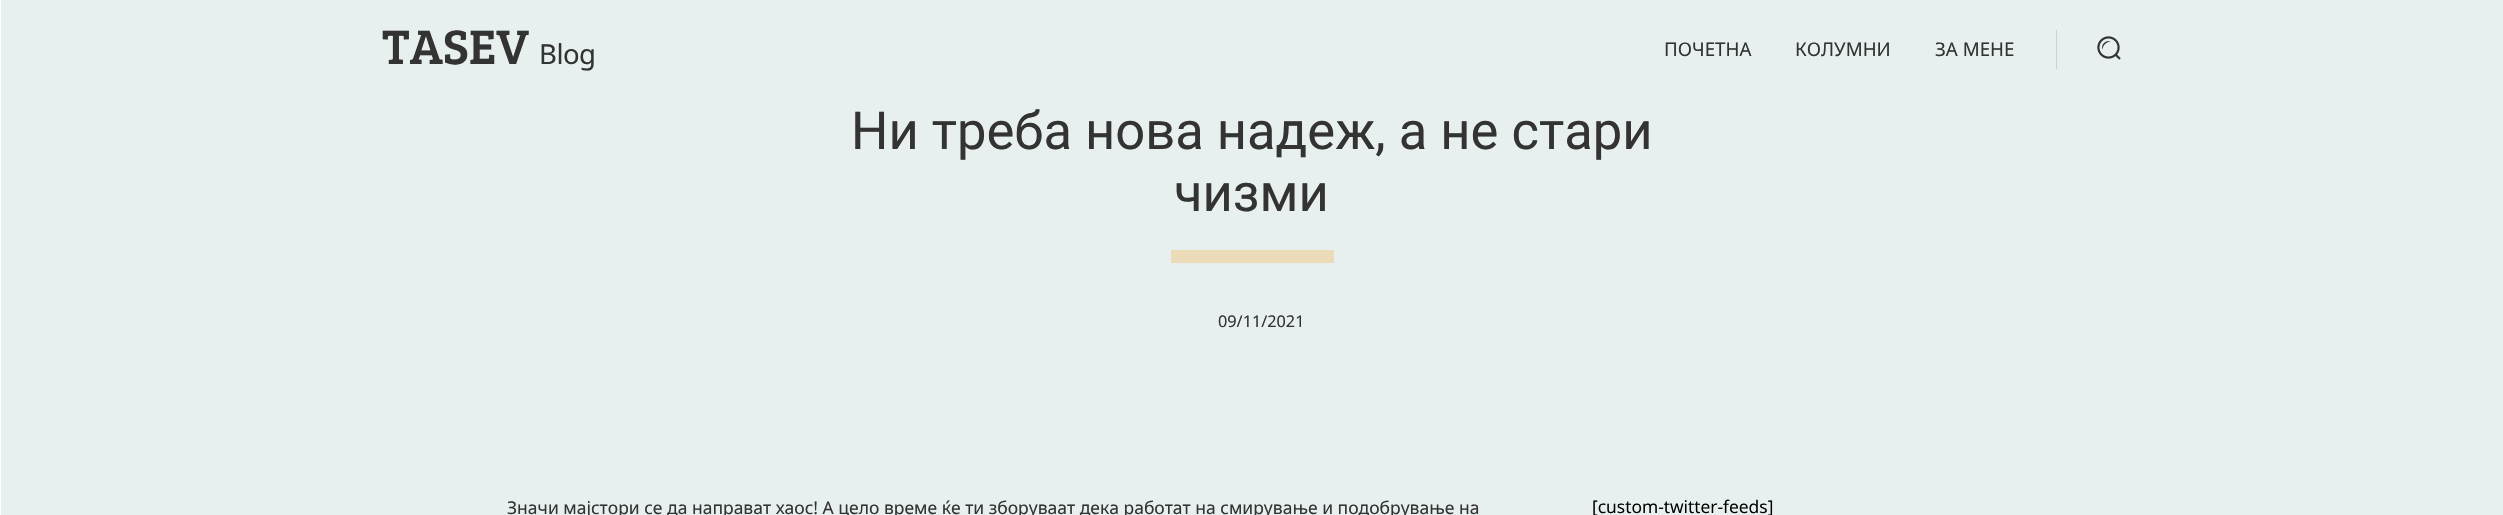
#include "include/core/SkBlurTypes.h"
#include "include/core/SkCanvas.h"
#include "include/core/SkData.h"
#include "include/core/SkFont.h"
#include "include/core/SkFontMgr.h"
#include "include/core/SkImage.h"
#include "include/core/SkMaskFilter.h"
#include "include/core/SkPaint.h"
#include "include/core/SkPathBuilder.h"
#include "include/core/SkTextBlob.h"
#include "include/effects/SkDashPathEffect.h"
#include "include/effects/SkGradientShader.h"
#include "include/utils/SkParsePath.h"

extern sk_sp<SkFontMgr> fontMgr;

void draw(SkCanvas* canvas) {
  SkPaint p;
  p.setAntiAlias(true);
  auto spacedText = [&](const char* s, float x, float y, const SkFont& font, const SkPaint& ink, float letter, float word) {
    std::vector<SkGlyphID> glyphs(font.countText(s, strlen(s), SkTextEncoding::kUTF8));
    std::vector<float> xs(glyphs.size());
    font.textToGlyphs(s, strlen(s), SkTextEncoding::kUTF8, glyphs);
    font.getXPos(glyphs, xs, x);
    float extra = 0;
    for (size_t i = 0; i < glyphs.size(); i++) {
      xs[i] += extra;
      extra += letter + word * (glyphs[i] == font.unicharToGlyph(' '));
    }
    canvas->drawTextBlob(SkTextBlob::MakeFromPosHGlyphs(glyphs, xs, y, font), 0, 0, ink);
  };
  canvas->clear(SK_ColorWHITE);
  p.setColor(SkColorSetRGB(232, 239, 239));
  canvas->drawRect(SkRect::MakeLTRB(1, 0, 2503, 515), p);
  p.setColor(SkColorSetRGB(204, 210, 210));
  canvas->drawRect(SkRect::MakeLTRB(2056, 30, 2057, 69), p);
  canvas->drawImageRect(SkImages::DeferredFromEncodedData(SkData::MakeFromFileName("images/1.png")), SkRect::MakeLTRB(2097, 36, 2121, 60), SkSamplingOptions());
  p.setColor(SkColorSetRGB(236, 219, 185));
  canvas->drawRect(SkRect::MakeLTRB(1171, 250, 1334, 263), p);
  SkFont font1(fontMgr->matchFamilyStyle("Bree Serif", SkFontStyle::Normal()), 50);
  font1.setSubpixel(true);
  p.setColor(SkColorSetRGB(51, 51, 51));
  canvas->drawString("TASEV", 382, 64, font1, p);
  SkFont font2(fontMgr->matchFamilyStyle("Noto Sans", SkFontStyle::Normal()), 27.5f);
  font2.setSubpixel(true);
  spacedText("Blog", 539, 64, font2, p, -0.5f, 0);
  SkFont font3(fontMgr->matchFamilyStyle("Noto Sans", SkFontStyle::Normal()), 18.75f);
  font3.setSubpixel(true);
  canvas->drawString("ПОЧЕТНА", 1664, 56, font3, p);
  canvas->drawString("КОЛУМНИ", 1795, 56, font3, p);
  canvas->drawString("ЗА МЕНЕ", 1935, 56, font3, p);
  SkFont font4(fontMgr->matchFamilyStyle("Roboto", SkFontStyle::Normal()), 52.5f);
  font4.setSubpixel(true);
  canvas->drawString("Ни треба нова надеж, а не стари", 851, 149, font4, p);
  canvas->drawString("чизми", 1174, 211, font4, p);
  SkFont font5(fontMgr->matchFamilyStyle("Noto Sans", SkFontStyle::Normal()), 16.25f);
  font5.setSubpixel(true);
  canvas->drawString("09/11/2021", 1218, 327, font5, p);
  SkFont font6(fontMgr->matchFamilyStyle("Noto Sans", SkFontStyle::Normal()), 17.5f);
  font6.setSubpixel(true);
  canvas->drawString("Значи мајстори се да направат хаос! А цело време ќе ти зборуваат дека работат на смирување и подобрување на", 507, 514, font6, p);
  SkFont font7(fontMgr->matchFamilyStyle("Open Sans", SkFontStyle::Normal()), 17.5f);
  font7.setSubpixel(true);
  p.setColor(SK_ColorBLACK);
  canvas->drawString("[custom-twitter-feeds]", 1592, 513, font7, p);
}
